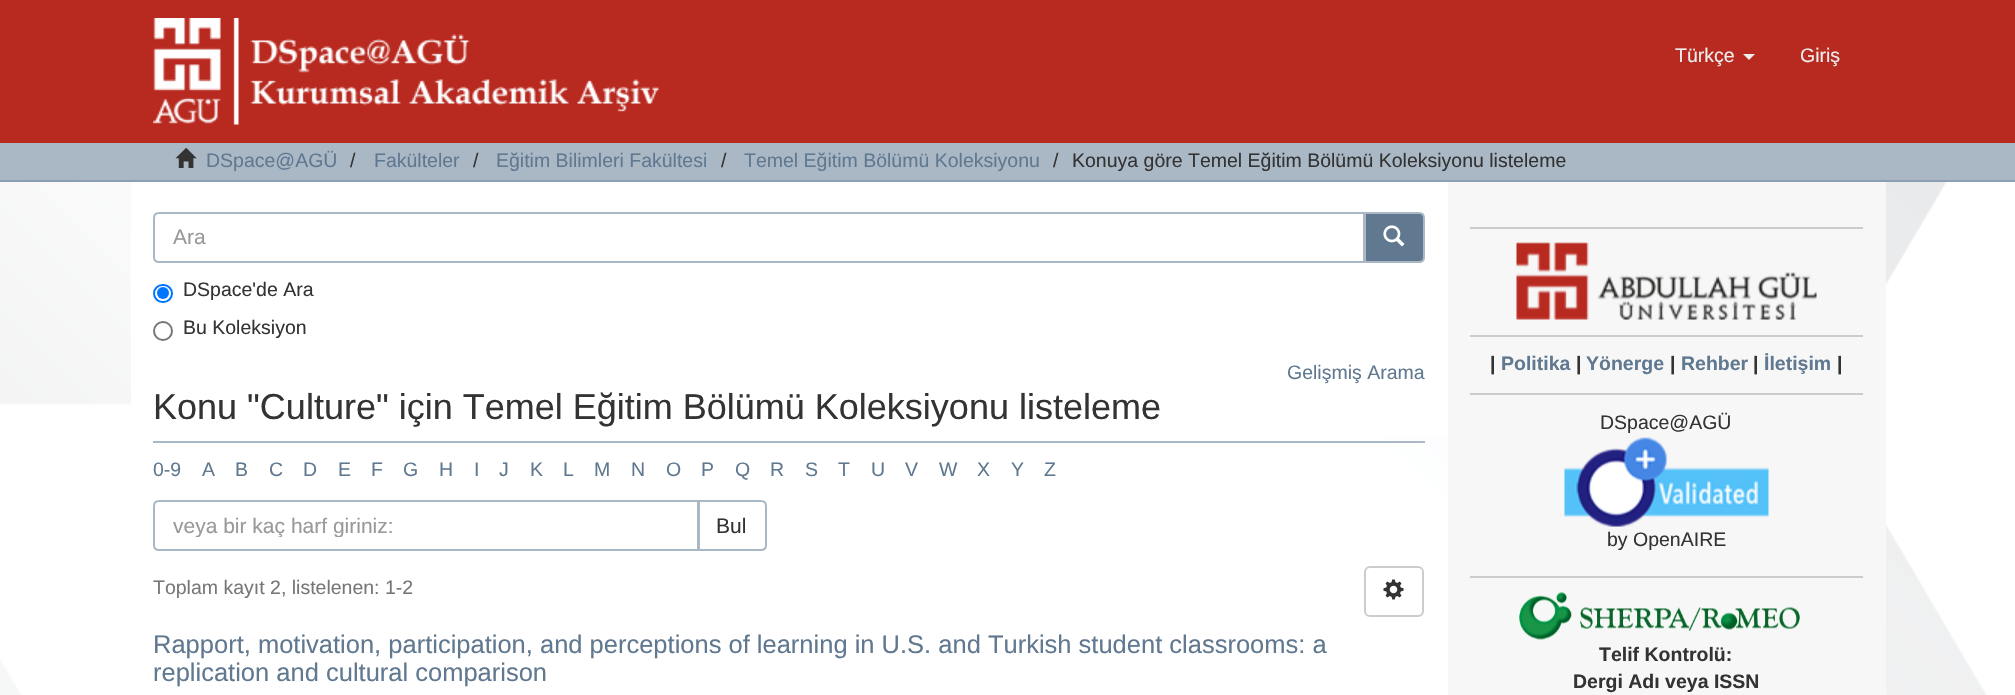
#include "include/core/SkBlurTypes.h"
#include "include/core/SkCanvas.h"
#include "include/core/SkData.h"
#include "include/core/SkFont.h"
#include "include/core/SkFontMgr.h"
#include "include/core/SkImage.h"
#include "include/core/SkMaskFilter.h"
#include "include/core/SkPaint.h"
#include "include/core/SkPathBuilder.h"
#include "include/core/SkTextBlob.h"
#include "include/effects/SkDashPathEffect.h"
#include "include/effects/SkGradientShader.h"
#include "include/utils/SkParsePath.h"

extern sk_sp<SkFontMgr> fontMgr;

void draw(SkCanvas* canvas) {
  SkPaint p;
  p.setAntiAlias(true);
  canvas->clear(SK_ColorWHITE);
  canvas->drawImageRect(SkImages::DeferredFromEncodedData(SkData::MakeFromFileName("images/1.png")), SkRect::MakeLTRB(0, 182, 2015, 695), SkSamplingOptions());
  p.setColor(SkColorSetRGB(184, 41, 32));
  canvas->drawRect(SkRect::MakeLTRB(0, 0, 2015, 143), p);
  canvas->drawImageRect(SkImages::DeferredFromEncodedData(SkData::MakeFromFileName("images/2.png")), SkRect::MakeLTRB(153, 18, 659, 125), SkSamplingOptions());
  p.setColor(SkColorSetRGB(238, 238, 238));
  canvas->drawPath(SkPathBuilder().moveTo(1743, 54).lineTo(1755, 54).lineTo(1749, 60).close().detach(), p);
  p.setColor(SkColorSetRGB(170, 184, 198));
  canvas->drawRect(SkRect::MakeLTRB(0, 143, 2015, 180), p);
  p.setColor(SkColorSetRGB(139, 158, 178));
  canvas->drawRect(SkRect::MakeLTRB(0, 180, 2015, 182), p);
  canvas->drawImageRect(SkImages::DeferredFromEncodedData(SkData::MakeFromFileName("images/3.png")), SkRect::MakeLTRB(175, 147, 197, 168), SkSamplingOptions());
  p.setColor(SkColorSetRGB(247, 247, 247));
  canvas->drawRect(SkRect::MakeLTRB(1448, 182, 1886, 695), p);
  p.setColor(SK_ColorWHITE);
  canvas->drawRect(SkRect::MakeLTRB(131, 182, 1448, 436), p);
  p.setColor(SkColorSetRGB(96, 120, 144));
  canvas->drawPath(SkPathBuilder().moveTo(1365, 213).lineTo(1419, 213).cubicTo(1422, 213, 1424, 215, 1424, 218).lineTo(1424, 257).cubicTo(1424, 260, 1422, 262, 1419, 262).lineTo(1365, 262).close().detach(), p);
  p.setStyle(SkPaint::kStroke_Style);
  p.setStrokeWidth(2);
  p.setColor(SkColorSetRGB(170, 184, 198));
  canvas->drawPath(SkPathBuilder().moveTo(1365, 213).lineTo(1419, 213).cubicTo(1422, 213, 1424, 215, 1424, 218).lineTo(1424, 257).cubicTo(1424, 260, 1422, 262, 1419, 262).lineTo(1365, 262).close().detach(), p);
  p.setStyle(SkPaint::kFill_Style);
  p.setColor(SK_ColorWHITE);
  canvas->drawPath(SkPathBuilder().moveTo(159, 213).lineTo(1364, 213).lineTo(1364, 262).lineTo(159, 262).cubicTo(156, 262, 154, 260, 154, 257).lineTo(154, 218).cubicTo(154, 215, 156, 213, 159, 213).close().detach(), p);
  p.setStyle(SkPaint::kStroke_Style);
  p.setColor(SkColorSetRGB(170, 184, 198));
  canvas->drawPath(SkPathBuilder().moveTo(159, 213).lineTo(1364, 213).lineTo(1364, 262).lineTo(159, 262).cubicTo(156, 262, 154, 260, 154, 257).lineTo(154, 218).cubicTo(154, 215, 156, 213, 159, 213).close().detach(), p);
  canvas->drawImageRect(SkImages::DeferredFromEncodedData(SkData::MakeFromFileName("images/4.png")), SkRect::MakeLTRB(1383, 225, 1405, 247), SkSamplingOptions());
  p.setColor(SkColorSetRGB(0, 117, 255));
  canvas->drawRoundRect(SkRect::MakeLTRB(154, 285, 172, 302), 8.5f, 8.5f, p);
  p.setStyle(SkPaint::kFill_Style);
  canvas->drawCircle(163, 293, 6, p);
  p.setStyle(SkPaint::kStroke_Style);
  p.setColor(SkColorSetRGB(118, 118, 118));
  canvas->drawCircle(163, 331, 9, p);
  p.setStyle(SkPaint::kFill_Style);
  p.setColor(SkColorSetRGB(170, 184, 198));
  canvas->drawRect(SkRect::MakeLTRB(153, 441, 1425, 443), p);
  p.setStyle(SkPaint::kStroke_Style);
  canvas->drawPath(SkPathBuilder().moveTo(699, 501).lineTo(761, 501).cubicTo(764, 501, 766, 503, 766, 506).lineTo(766, 545).cubicTo(766, 548, 764, 550, 761, 550).lineTo(699, 550).close().detach(), p);
  p.setStyle(SkPaint::kFill_Style);
  p.setColor(SK_ColorWHITE);
  canvas->drawPath(SkPathBuilder().moveTo(159, 501).lineTo(698, 501).lineTo(698, 550).lineTo(159, 550).cubicTo(156, 550, 154, 548, 154, 545).lineTo(154, 506).cubicTo(154, 503, 156, 501, 159, 501).close().detach(), p);
  p.setStyle(SkPaint::kStroke_Style);
  p.setColor(SkColorSetRGB(170, 184, 198));
  canvas->drawPath(SkPathBuilder().moveTo(159, 501).lineTo(698, 501).lineTo(698, 550).lineTo(159, 550).cubicTo(156, 550, 154, 548, 154, 545).lineTo(154, 506).cubicTo(154, 503, 156, 501, 159, 501).close().detach(), p);
  p.setColor(SkColorSetRGB(204, 204, 204));
  canvas->drawRoundRect(SkRect::MakeLTRB(1365, 567, 1423, 616), 5, 5, p);
  canvas->drawImageRect(SkImages::DeferredFromEncodedData(SkData::MakeFromFileName("images/5.png")), SkRect::MakeLTRB(1383, 579, 1404, 600), SkSamplingOptions());
  p.setStyle(SkPaint::kFill_Style);
  canvas->drawRect(SkRect::MakeLTRB(1470, 227, 1863, 229), p);
  canvas->drawImageRect(SkImages::DeferredFromEncodedData(SkData::MakeFromFileName("images/6.png")), SkRect::MakeLTRB(1516, 242, 1817, 320), SkSamplingOptions());
  canvas->drawRect(SkRect::MakeLTRB(1470, 335, 1863, 337), p);
  canvas->drawRect(SkRect::MakeLTRB(1470, 393, 1863, 395), p);
  canvas->drawImageRect(SkImages::DeferredFromEncodedData(SkData::MakeFromFileName("images/7.png")), SkRect::MakeLTRB(1564, 437, 1769, 527), SkSamplingOptions());
  canvas->drawRect(SkRect::MakeLTRB(1470, 576, 1863, 578), p);
  canvas->drawImageRect(SkImages::DeferredFromEncodedData(SkData::MakeFromFileName("images/8.png")), SkRect::MakeLTRB(1519, 592, 1800, 640), SkSamplingOptions());
  SkFont font1(fontMgr->matchFamilyStyle("Liberation Sans", SkFontStyle::Normal()), 19.5f);
  font1.setSubpixel(true);
  p.setColor(SkColorSetRGB(238, 238, 238));
  canvas->drawString("Türkçe", 1675, 62, font1, p);
  canvas->drawString("Giriş", 1800, 62, font1, p);
  p.setColor(SkColorSetRGB(96, 120, 144));
  canvas->drawString("DSpace@AGÜ", 206, 167, font1, p);
  p.setColor(SkColorSetRGB(51, 51, 51));
  canvas->drawString("/", 350, 167, font1, p);
  p.setColor(SkColorSetRGB(96, 120, 144));
  canvas->drawString("Fakülteler", 374, 167, font1, p);
  p.setColor(SkColorSetRGB(51, 51, 51));
  canvas->drawString("/", 473, 167, font1, p);
  p.setColor(SkColorSetRGB(96, 120, 144));
  canvas->drawString("Eğitim Bilimleri Fakültesi", 496, 167, font1, p);
  p.setColor(SkColorSetRGB(51, 51, 51));
  canvas->drawString("/", 721, 167, font1, p);
  p.setColor(SkColorSetRGB(96, 120, 144));
  canvas->drawString("Temel Eğitim Bölümü Koleksiyonu", 744, 167, font1, p);
  p.setColor(SkColorSetRGB(51, 51, 51));
  canvas->drawString("/", 1053, 167, font1, p);
  canvas->drawString("Konuya göre Temel Eğitim Bölümü Koleksiyonu listeleme", 1072, 167, font1, p);
  SkFont font2(fontMgr->matchFamilyStyle("Liberation Sans", SkFontStyle::Normal()), 21);
  font2.setSubpixel(true);
  p.setColor(SkColorSetRGB(153, 153, 153));
  canvas->drawString("Ara", 173, 244, font2, p);
  p.setColor(SkColorSetRGB(51, 51, 51));
  canvas->drawString("DSpace'de Ara", 183, 296, font1, p);
  canvas->drawString("Bu Koleksiyon", 183, 334, font1, p);
  p.setColor(SkColorSetRGB(96, 120, 144));
  canvas->drawString("Gelişmiş Arama", 1287, 379, font1, p);
  SkFont font3(fontMgr->matchFamilyStyle("Liberation Sans", SkFontStyle::Normal()), 36);
  font3.setSubpixel(true);
  p.setColor(SkColorSetRGB(51, 51, 51));
  canvas->drawString("Konu \"Culture\" için Temel Eğitim Bölümü Koleksiyonu listeleme", 153, 419, font3, p);
  p.setColor(SkColorSetRGB(96, 120, 144));
  canvas->drawString("0-9", 153, 476, font1, p);
  canvas->drawString("A", 202, 476, font1, p);
  canvas->drawString("B", 235, 476, font1, p);
  canvas->drawString("C", 269, 476, font1, p);
  canvas->drawString("D", 303, 476, font1, p);
  canvas->drawString("E", 338, 476, font1, p);
  canvas->drawString("F", 371, 476, font1, p);
  canvas->drawString("G", 403, 476, font1, p);
  canvas->drawString("H", 439, 476, font1, p);
  canvas->drawString("I", 474, 476, font1, p);
  canvas->drawString("J", 499, 476, font1, p);
  canvas->drawString("K", 530, 476, font1, p);
  canvas->drawString("L", 563, 476, font1, p);
  canvas->drawString("M", 594, 476, font1, p);
  canvas->drawString("N", 631, 476, font1, p);
  canvas->drawString("O", 666, 476, font1, p);
  canvas->drawString("P", 701, 476, font1, p);
  canvas->drawString("Q", 735, 476, font1, p);
  canvas->drawString("R", 770, 476, font1, p);
  canvas->drawString("S", 805, 476, font1, p);
  canvas->drawString("T", 838, 476, font1, p);
  canvas->drawString("U", 871, 476, font1, p);
  canvas->drawString("V", 905, 476, font1, p);
  canvas->drawString("W", 939, 476, font1, p);
  canvas->drawString("X", 977, 476, font1, p);
  canvas->drawString("Y", 1011, 476, font1, p);
  canvas->drawString("Z", 1044, 476, font1, p);
  canvas->save();
  canvas->clipRect(SkRect::MakeLTRB(173, 513, 680, 537));
  p.setColor(SkColorSetRGB(153, 153, 153));
  canvas->drawString("veya bir kaç harf giriniz:", 173, 533, font2, p);
  canvas->restore();
  p.setColor(SkColorSetRGB(51, 51, 51));
  canvas->drawString("Bul", 716, 533, font2, p);
  p.setColor(SkColorSetRGB(119, 119, 119));
  canvas->drawString("Toplam kayıt 2, listelenen: 1-2", 153, 594, font1, p);
  SkFont font4(fontMgr->matchFamilyStyle("Liberation Sans", SkFontStyle::Normal()), 25.5f);
  font4.setSubpixel(true);
  p.setColor(SkColorSetRGB(96, 120, 144));
  canvas->drawString("Rapport, motivation, participation, and perceptions of learning in U.S. and Turkish student classrooms: a", 153, 653, font4, p);
  canvas->drawString("replication and cultural comparison", 153, 681, font4, p);
  SkFont font5(fontMgr->matchFamilyStyle("Liberation Sans", SkFontStyle::Bold()), 19.5f);
  font5.setSubpixel(true);
  p.setColor(SkColorSetRGB(51, 51, 51));
  canvas->drawString("|", 1490, 370, font5, p);
  p.setColor(SkColorSetRGB(96, 120, 144));
  canvas->drawString("Politika", 1501, 370, font5, p);
  p.setColor(SkColorSetRGB(51, 51, 51));
  canvas->drawString("|", 1576, 370, font5, p);
  p.setColor(SkColorSetRGB(96, 120, 144));
  canvas->drawString("Yönerge", 1586, 370, font5, p);
  p.setColor(SkColorSetRGB(51, 51, 51));
  canvas->drawString("|", 1670, 370, font5, p);
  p.setColor(SkColorSetRGB(96, 120, 144));
  canvas->drawString("Rehber", 1681, 370, font5, p);
  p.setColor(SkColorSetRGB(51, 51, 51));
  canvas->drawString("|", 1753, 370, font5, p);
  p.setColor(SkColorSetRGB(96, 120, 144));
  canvas->drawString("İletişim", 1764, 370, font5, p);
  p.setColor(SkColorSetRGB(51, 51, 51));
  canvas->drawString("|", 1837, 370, font5, p);
  canvas->drawString("DSpace@AGÜ", 1600, 429, font1, p);
  canvas->drawString("by OpenAIRE", 1607, 546, font1, p);
  canvas->drawString("Telif Kontrolü:", 1599, 661, font5, p);
  canvas->drawString("Dergi Adı veya ISSN", 1573, 688, font5, p);
}
